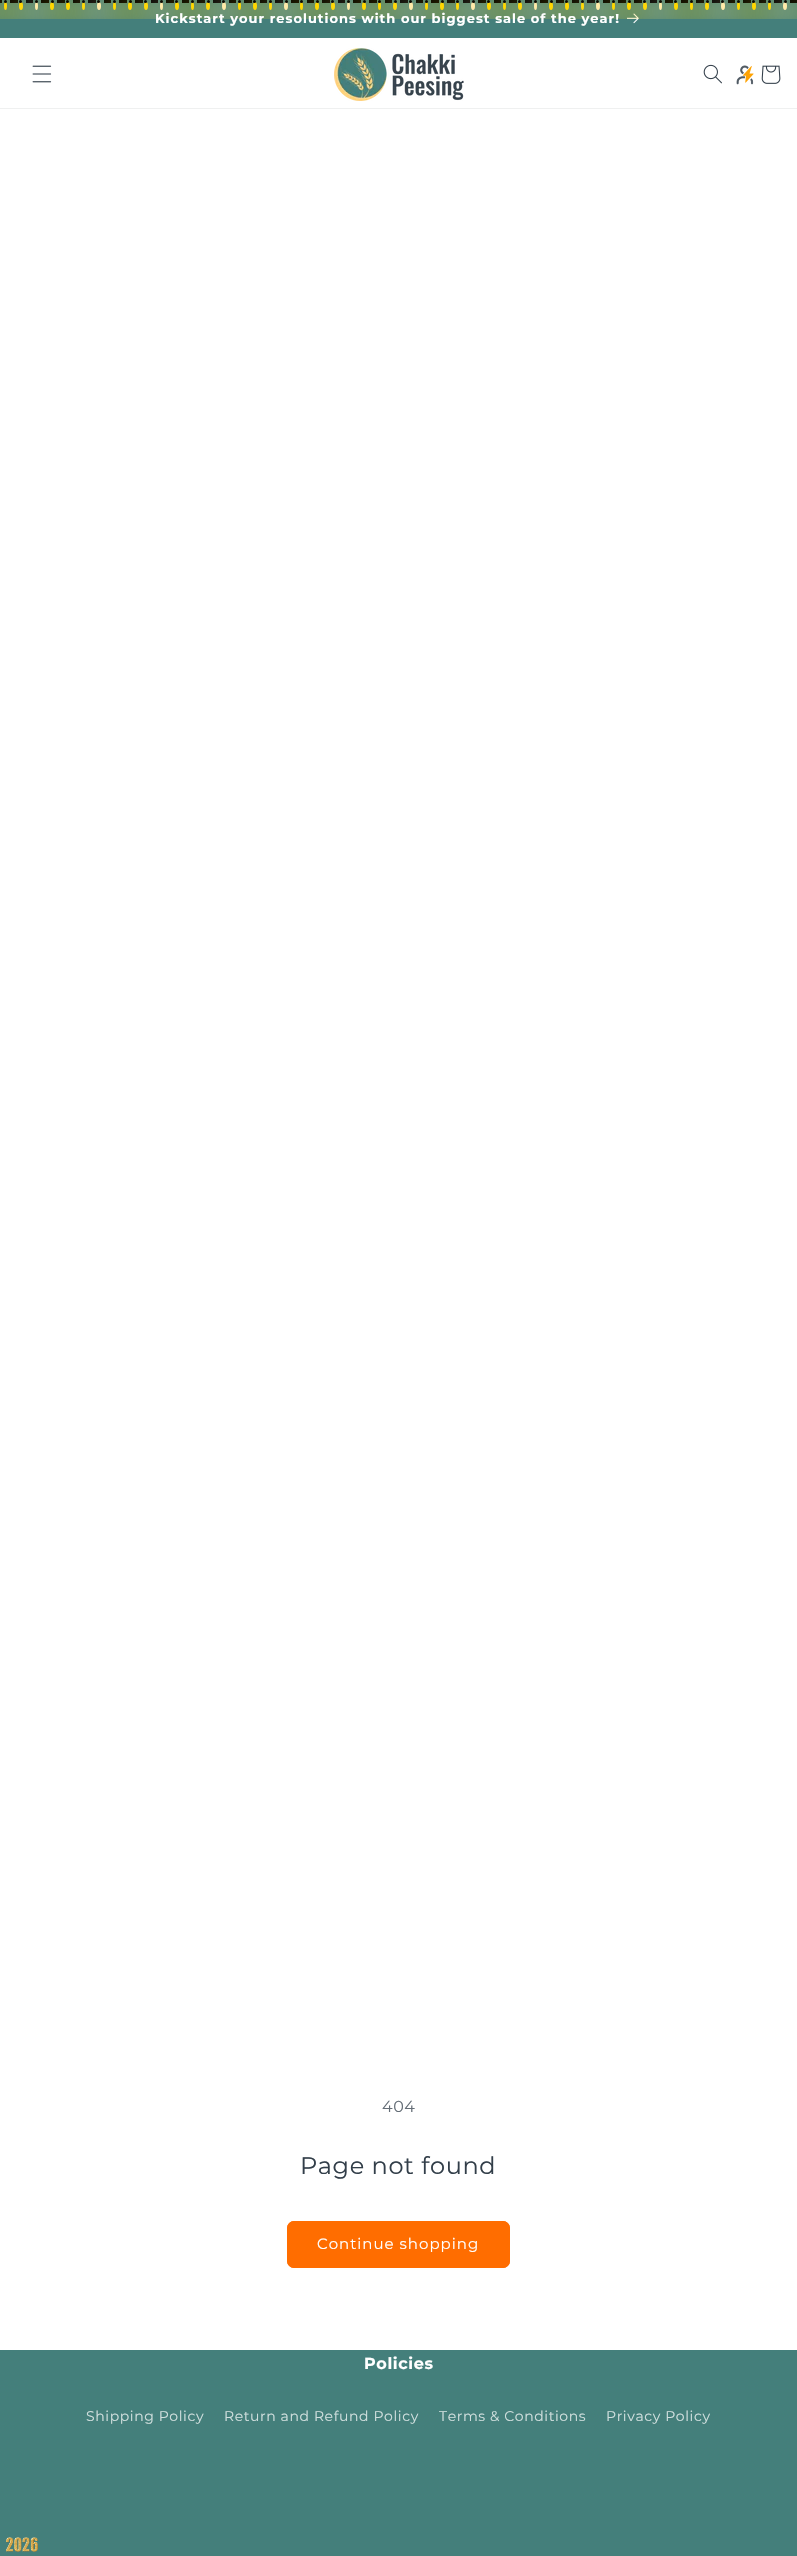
#include "include/core/SkBlurTypes.h"
#include "include/core/SkCanvas.h"
#include "include/core/SkData.h"
#include "include/core/SkFont.h"
#include "include/core/SkFontMgr.h"
#include "include/core/SkImage.h"
#include "include/core/SkMaskFilter.h"
#include "include/core/SkPaint.h"
#include "include/core/SkPathBuilder.h"
#include "include/core/SkTextBlob.h"
#include "include/effects/SkDashPathEffect.h"
#include "include/effects/SkGradientShader.h"
#include "include/utils/SkParsePath.h"

extern sk_sp<SkFontMgr> fontMgr;

void draw(SkCanvas* canvas) {
  SkPaint p;
  p.setAntiAlias(true);
  auto spacedText = [&](const char* s, float x, float y, const SkFont& font, const SkPaint& ink, float letter, float word) {
    std::vector<SkGlyphID> glyphs(font.countText(s, strlen(s), SkTextEncoding::kUTF8));
    std::vector<float> xs(glyphs.size());
    font.textToGlyphs(s, strlen(s), SkTextEncoding::kUTF8, glyphs);
    font.getXPos(glyphs, xs, x);
    float extra = 0;
    for (size_t i = 0; i < glyphs.size(); i++) {
      xs[i] += extra;
      extra += letter + word * (glyphs[i] == font.unicharToGlyph(' '));
    }
    canvas->drawTextBlob(SkTextBlob::MakeFromPosHGlyphs(glyphs, xs, y, font), 0, 0, ink);
  };
  canvas->clear(SK_ColorWHITE);
  p.setColor(SkColorSetRGB(68, 127, 123));
  canvas->drawRect(SkRect::MakeLTRB(0, 0, 797, 38), p);
  canvas->save();
  canvas->clipRect(SkRect::MakeLTRB(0, 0, 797, 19));
  p.setColor(SkColorSetRGB(255, 215, 0));
  p.setMaskFilter(SkMaskFilter::MakeBlur(kNormal_SkBlurStyle, 12));
  canvas->drawRoundRect(SkRect::MakeLTRB(-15, 4, -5, 18), 5, 5, p);
  p.setMaskFilter(nullptr);
  canvas->restore();
  p.setColor(SK_ColorBLACK);
  canvas->drawRect(SkRect::MakeLTRB(0, 0, 2, 3), p);
  canvas->save();
  canvas->clipRect(SkRect::MakeLTRB(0, 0, 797, 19));
  p.setColor(SkColorSetRGB(255, 215, 0));
  p.setMaskFilter(SkMaskFilter::MakeBlur(kNormal_SkBlurStyle, 12));
  canvas->drawRoundRect(SkRect::MakeLTRB(1, 4, 10, 18), 4.5f, 4.5f, p);
  p.setMaskFilter(nullptr);
  canvas->restore();
  canvas->drawOval(SkRect::MakeLTRB(4, 2, 7, 10), p);
  p.setColor(SK_ColorBLACK);
  canvas->drawCircle(5.5f, 1.5f, 1.5f, p);
  canvas->drawRect(SkRect::MakeLTRB(10, 0, 18, 3), p);
  canvas->save();
  canvas->clipRect(SkRect::MakeLTRB(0, 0, 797, 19));
  p.setColor(SkColorSetRGB(255, 215, 0));
  p.setMaskFilter(SkMaskFilter::MakeBlur(kNormal_SkBlurStyle, 12));
  canvas->drawRoundRect(SkRect::MakeLTRB(16, 4, 26, 18), 5, 5, p);
  p.setMaskFilter(nullptr);
  canvas->restore();
  canvas->drawOval(SkRect::MakeLTRB(19, 2, 23, 10), p);
  p.setColor(SK_ColorBLACK);
  canvas->drawCircle(20.5f, 1.5f, 1.5f, p);
  canvas->drawRect(SkRect::MakeLTRB(26, 0, 33, 3), p);
  canvas->save();
  canvas->clipRect(SkRect::MakeLTRB(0, 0, 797, 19));
  p.setColor(SkColorSetRGB(255, 236, 179));
  p.setMaskFilter(SkMaskFilter::MakeBlur(kNormal_SkBlurStyle, 12));
  canvas->drawRoundRect(SkRect::MakeLTRB(32, 4, 41, 18), 4.5f, 4.5f, p);
  p.setMaskFilter(nullptr);
  canvas->restore();
  canvas->drawOval(SkRect::MakeLTRB(35, 2, 38, 10), p);
  p.setColor(SK_ColorBLACK);
  canvas->drawCircle(36.5f, 1.5f, 1.5f, p);
  canvas->drawRect(SkRect::MakeLTRB(41, 0, 49, 3), p);
  canvas->save();
  canvas->clipRect(SkRect::MakeLTRB(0, 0, 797, 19));
  p.setColor(SkColorSetRGB(255, 215, 0));
  p.setMaskFilter(SkMaskFilter::MakeBlur(kNormal_SkBlurStyle, 12));
  canvas->drawRoundRect(SkRect::MakeLTRB(47, 4, 57, 18), 5, 5, p);
  p.setMaskFilter(nullptr);
  canvas->restore();
  canvas->drawOval(SkRect::MakeLTRB(50, 2, 54, 10), p);
  p.setColor(SK_ColorBLACK);
  canvas->drawCircle(52.5f, 1.5f, 1.5f, p);
  canvas->drawRect(SkRect::MakeLTRB(57, 0, 65, 3), p);
  canvas->save();
  canvas->clipRect(SkRect::MakeLTRB(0, 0, 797, 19));
  p.setColor(SkColorSetRGB(255, 215, 0));
  p.setMaskFilter(SkMaskFilter::MakeBlur(kNormal_SkBlurStyle, 12));
  canvas->drawRoundRect(SkRect::MakeLTRB(63, 4, 73, 18), 5, 5, p);
  p.setMaskFilter(nullptr);
  canvas->restore();
  canvas->drawOval(SkRect::MakeLTRB(66, 2, 70, 10), p);
  p.setColor(SK_ColorBLACK);
  canvas->drawCircle(67.5f, 1.5f, 1.5f, p);
  canvas->drawRect(SkRect::MakeLTRB(73, 0, 80, 3), p);
  canvas->save();
  canvas->clipRect(SkRect::MakeLTRB(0, 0, 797, 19));
  p.setColor(SkColorSetRGB(255, 215, 0));
  p.setMaskFilter(SkMaskFilter::MakeBlur(kNormal_SkBlurStyle, 12));
  canvas->drawRoundRect(SkRect::MakeLTRB(79, 4, 88, 18), 4.5f, 4.5f, p);
  p.setMaskFilter(nullptr);
  canvas->restore();
  canvas->drawOval(SkRect::MakeLTRB(82, 2, 85, 10), p);
  p.setColor(SK_ColorBLACK);
  canvas->drawCircle(83.5f, 1.5f, 1.5f, p);
  canvas->drawRect(SkRect::MakeLTRB(88, 0, 96, 3), p);
  canvas->save();
  canvas->clipRect(SkRect::MakeLTRB(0, 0, 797, 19));
  p.setColor(SkColorSetRGB(255, 236, 179));
  p.setMaskFilter(SkMaskFilter::MakeBlur(kNormal_SkBlurStyle, 12));
  canvas->drawRoundRect(SkRect::MakeLTRB(94, 4, 104, 18), 5, 5, p);
  p.setMaskFilter(nullptr);
  canvas->restore();
  canvas->drawOval(SkRect::MakeLTRB(97, 2, 101, 10), p);
  p.setColor(SK_ColorBLACK);
  canvas->drawCircle(98.5f, 1.5f, 1.5f, p);
  canvas->drawRect(SkRect::MakeLTRB(104, 0, 111, 3), p);
  canvas->save();
  canvas->clipRect(SkRect::MakeLTRB(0, 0, 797, 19));
  p.setColor(SkColorSetRGB(255, 215, 0));
  p.setMaskFilter(SkMaskFilter::MakeBlur(kNormal_SkBlurStyle, 12));
  canvas->drawRoundRect(SkRect::MakeLTRB(110, 4, 119, 18), 4.5f, 4.5f, p);
  p.setMaskFilter(nullptr);
  canvas->restore();
  canvas->drawOval(SkRect::MakeLTRB(113, 2, 116, 10), p);
  p.setColor(SK_ColorBLACK);
  canvas->drawCircle(114.5f, 1.5f, 1.5f, p);
  canvas->drawRect(SkRect::MakeLTRB(119, 0, 127, 3), p);
  canvas->save();
  canvas->clipRect(SkRect::MakeLTRB(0, 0, 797, 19));
  p.setColor(SkColorSetRGB(255, 215, 0));
  p.setMaskFilter(SkMaskFilter::MakeBlur(kNormal_SkBlurStyle, 12));
  canvas->drawRoundRect(SkRect::MakeLTRB(125, 4, 135, 18), 5, 5, p);
  p.setMaskFilter(nullptr);
  canvas->restore();
  canvas->drawOval(SkRect::MakeLTRB(128, 2, 132, 10), p);
  p.setColor(SK_ColorBLACK);
  canvas->drawCircle(130.5f, 1.5f, 1.5f, p);
  canvas->drawRect(SkRect::MakeLTRB(135, 0, 143, 3), p);
  canvas->save();
  canvas->clipRect(SkRect::MakeLTRB(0, 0, 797, 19));
  p.setColor(SkColorSetRGB(255, 215, 0));
  p.setMaskFilter(SkMaskFilter::MakeBlur(kNormal_SkBlurStyle, 12));
  canvas->drawRoundRect(SkRect::MakeLTRB(141, 4, 151, 18), 5, 5, p);
  p.setMaskFilter(nullptr);
  canvas->restore();
  canvas->drawOval(SkRect::MakeLTRB(144, 2, 148, 10), p);
  p.setColor(SK_ColorBLACK);
  canvas->drawCircle(145.5f, 1.5f, 1.5f, p);
  canvas->drawRect(SkRect::MakeLTRB(151, 0, 158, 3), p);
  canvas->save();
  canvas->clipRect(SkRect::MakeLTRB(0, 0, 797, 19));
  p.setColor(SkColorSetRGB(255, 236, 179));
  p.setMaskFilter(SkMaskFilter::MakeBlur(kNormal_SkBlurStyle, 12));
  canvas->drawRoundRect(SkRect::MakeLTRB(157, 4, 166, 18), 4.5f, 4.5f, p);
  p.setMaskFilter(nullptr);
  canvas->restore();
  canvas->drawOval(SkRect::MakeLTRB(160, 2, 163, 10), p);
  p.setColor(SK_ColorBLACK);
  canvas->drawCircle(161.5f, 1.5f, 1.5f, p);
  canvas->drawRect(SkRect::MakeLTRB(166, 0, 174, 3), p);
  canvas->save();
  canvas->clipRect(SkRect::MakeLTRB(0, 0, 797, 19));
  p.setColor(SkColorSetRGB(255, 215, 0));
  p.setMaskFilter(SkMaskFilter::MakeBlur(kNormal_SkBlurStyle, 12));
  canvas->drawRoundRect(SkRect::MakeLTRB(172, 4, 182, 18), 5, 5, p);
  p.setMaskFilter(nullptr);
  canvas->restore();
  canvas->drawOval(SkRect::MakeLTRB(175, 2, 179, 10), p);
  p.setColor(SK_ColorBLACK);
  canvas->drawCircle(176.5f, 1.5f, 1.5f, p);
  canvas->drawRect(SkRect::MakeLTRB(182, 0, 189, 3), p);
  canvas->save();
  canvas->clipRect(SkRect::MakeLTRB(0, 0, 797, 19));
  p.setColor(SkColorSetRGB(255, 215, 0));
  p.setMaskFilter(SkMaskFilter::MakeBlur(kNormal_SkBlurStyle, 12));
  canvas->drawRoundRect(SkRect::MakeLTRB(188, 4, 197, 18), 4.5f, 4.5f, p);
  p.setMaskFilter(nullptr);
  canvas->restore();
  canvas->drawOval(SkRect::MakeLTRB(191, 2, 194, 10), p);
  p.setColor(SK_ColorBLACK);
  canvas->drawCircle(192.5f, 1.5f, 1.5f, p);
  canvas->drawRect(SkRect::MakeLTRB(197, 0, 205, 3), p);
  canvas->save();
  canvas->clipRect(SkRect::MakeLTRB(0, 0, 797, 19));
  p.setColor(SkColorSetRGB(255, 215, 0));
  p.setMaskFilter(SkMaskFilter::MakeBlur(kNormal_SkBlurStyle, 12));
  canvas->drawRoundRect(SkRect::MakeLTRB(203, 4, 213, 18), 5, 5, p);
  p.setMaskFilter(nullptr);
  canvas->restore();
  canvas->drawOval(SkRect::MakeLTRB(206, 2, 210, 10), p);
  p.setColor(SK_ColorBLACK);
  canvas->drawCircle(208.5f, 1.5f, 1.5f, p);
  canvas->drawRect(SkRect::MakeLTRB(213, 0, 221, 3), p);
  canvas->save();
  canvas->clipRect(SkRect::MakeLTRB(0, 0, 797, 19));
  p.setColor(SkColorSetRGB(255, 236, 179));
  p.setMaskFilter(SkMaskFilter::MakeBlur(kNormal_SkBlurStyle, 12));
  canvas->drawRoundRect(SkRect::MakeLTRB(219, 4, 229, 18), 5, 5, p);
  p.setMaskFilter(nullptr);
  canvas->restore();
  canvas->drawOval(SkRect::MakeLTRB(222, 2, 226, 10), p);
  p.setColor(SK_ColorBLACK);
  canvas->drawCircle(223.5f, 1.5f, 1.5f, p);
  canvas->drawRect(SkRect::MakeLTRB(229, 0, 236, 3), p);
  canvas->save();
  canvas->clipRect(SkRect::MakeLTRB(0, 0, 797, 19));
  p.setColor(SkColorSetRGB(255, 215, 0));
  p.setMaskFilter(SkMaskFilter::MakeBlur(kNormal_SkBlurStyle, 12));
  canvas->drawRoundRect(SkRect::MakeLTRB(235, 4, 244, 18), 4.5f, 4.5f, p);
  p.setMaskFilter(nullptr);
  canvas->restore();
  canvas->drawOval(SkRect::MakeLTRB(238, 2, 241, 10), p);
  p.setColor(SK_ColorBLACK);
  canvas->drawCircle(239.5f, 1.5f, 1.5f, p);
  canvas->drawRect(SkRect::MakeLTRB(244, 0, 252, 3), p);
  canvas->save();
  canvas->clipRect(SkRect::MakeLTRB(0, 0, 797, 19));
  p.setColor(SkColorSetRGB(255, 215, 0));
  p.setMaskFilter(SkMaskFilter::MakeBlur(kNormal_SkBlurStyle, 12));
  canvas->drawRoundRect(SkRect::MakeLTRB(250, 4, 260, 18), 5, 5, p);
  p.setMaskFilter(nullptr);
  canvas->restore();
  canvas->drawOval(SkRect::MakeLTRB(253, 2, 257, 10), p);
  p.setColor(SK_ColorBLACK);
  canvas->drawCircle(254.5f, 1.5f, 1.5f, p);
  canvas->drawRect(SkRect::MakeLTRB(260, 0, 267, 3), p);
  canvas->save();
  canvas->clipRect(SkRect::MakeLTRB(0, 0, 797, 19));
  p.setColor(SkColorSetRGB(255, 215, 0));
  p.setMaskFilter(SkMaskFilter::MakeBlur(kNormal_SkBlurStyle, 12));
  canvas->drawRoundRect(SkRect::MakeLTRB(266, 4, 275, 18), 4.5f, 4.5f, p);
  p.setMaskFilter(nullptr);
  canvas->restore();
  canvas->drawOval(SkRect::MakeLTRB(269, 2, 272, 10), p);
  p.setColor(SK_ColorBLACK);
  canvas->drawCircle(270.5f, 1.5f, 1.5f, p);
  canvas->drawRect(SkRect::MakeLTRB(275, 0, 283, 3), p);
  canvas->save();
  canvas->clipRect(SkRect::MakeLTRB(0, 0, 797, 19));
  p.setColor(SkColorSetRGB(255, 236, 179));
  p.setMaskFilter(SkMaskFilter::MakeBlur(kNormal_SkBlurStyle, 12));
  canvas->drawRoundRect(SkRect::MakeLTRB(281, 4, 291, 18), 5, 5, p);
  p.setMaskFilter(nullptr);
  canvas->restore();
  canvas->drawOval(SkRect::MakeLTRB(284, 2, 288, 10), p);
  p.setColor(SK_ColorBLACK);
  canvas->drawCircle(286.5f, 1.5f, 1.5f, p);
  canvas->drawRect(SkRect::MakeLTRB(291, 0, 299, 3), p);
  canvas->drawImageRect(SkImages::DeferredFromEncodedData(SkData::MakeFromFileName("images/3.png")), SkRect::MakeLTRB(334, 48, 464, 101), SkSamplingOptions());
  canvas->save();
  canvas->clipRect(SkRect::MakeLTRB(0, 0, 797, 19));
  p.setColor(SkColorSetRGB(255, 215, 0));
  p.setMaskFilter(SkMaskFilter::MakeBlur(kNormal_SkBlurStyle, 12));
  canvas->drawRoundRect(SkRect::MakeLTRB(297, 4, 306, 18), 4.5f, 4.5f, p);
  p.setMaskFilter(nullptr);
  canvas->restore();
  canvas->drawOval(SkRect::MakeLTRB(300, 2, 303, 10), p);
  p.setColor(SK_ColorBLACK);
  canvas->drawCircle(301.5f, 1.5f, 1.5f, p);
  canvas->drawRect(SkRect::MakeLTRB(307, 0, 314, 3), p);
  canvas->save();
  canvas->clipRect(SkRect::MakeLTRB(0, 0, 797, 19));
  p.setColor(SkColorSetRGB(255, 215, 0));
  p.setMaskFilter(SkMaskFilter::MakeBlur(kNormal_SkBlurStyle, 12));
  canvas->drawRoundRect(SkRect::MakeLTRB(312, 4, 322, 18), 5, 5, p);
  p.setMaskFilter(nullptr);
  canvas->restore();
  canvas->drawOval(SkRect::MakeLTRB(315, 2, 319, 10), p);
  p.setColor(SK_ColorBLACK);
  canvas->drawCircle(317.5f, 1.5f, 1.5f, p);
  canvas->drawRect(SkRect::MakeLTRB(322, 0, 330, 3), p);
  canvas->save();
  canvas->clipRect(SkRect::MakeLTRB(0, 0, 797, 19));
  p.setColor(SkColorSetRGB(255, 215, 0));
  p.setMaskFilter(SkMaskFilter::MakeBlur(kNormal_SkBlurStyle, 12));
  canvas->drawRoundRect(SkRect::MakeLTRB(328, 4, 338, 18), 5, 5, p);
  p.setMaskFilter(nullptr);
  canvas->restore();
  canvas->drawOval(SkRect::MakeLTRB(331, 2, 335, 10), p);
  p.setColor(SK_ColorBLACK);
  canvas->drawCircle(332.5f, 1.5f, 1.5f, p);
  canvas->drawRect(SkRect::MakeLTRB(338, 0, 345, 3), p);
  canvas->save();
  canvas->clipRect(SkRect::MakeLTRB(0, 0, 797, 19));
  p.setColor(SkColorSetRGB(255, 236, 179));
  p.setMaskFilter(SkMaskFilter::MakeBlur(kNormal_SkBlurStyle, 12));
  canvas->drawRoundRect(SkRect::MakeLTRB(344, 4, 353, 18), 4.5f, 4.5f, p);
  p.setMaskFilter(nullptr);
  canvas->restore();
  canvas->drawOval(SkRect::MakeLTRB(347, 2, 350, 10), p);
  p.setColor(SK_ColorBLACK);
  canvas->drawCircle(348.5f, 1.5f, 1.5f, p);
  canvas->drawRect(SkRect::MakeLTRB(353, 0, 361, 3), p);
  canvas->save();
  canvas->clipRect(SkRect::MakeLTRB(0, 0, 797, 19));
  p.setColor(SkColorSetRGB(255, 215, 0));
  p.setMaskFilter(SkMaskFilter::MakeBlur(kNormal_SkBlurStyle, 12));
  canvas->drawRoundRect(SkRect::MakeLTRB(359, 4, 369, 18), 5, 5, p);
  p.setMaskFilter(nullptr);
  canvas->restore();
  canvas->drawOval(SkRect::MakeLTRB(362, 2, 366, 10), p);
  p.setColor(SK_ColorBLACK);
  canvas->drawCircle(364.5f, 1.5f, 1.5f, p);
  canvas->drawRect(SkRect::MakeLTRB(369, 0, 377, 3), p);
  canvas->save();
  canvas->clipRect(SkRect::MakeLTRB(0, 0, 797, 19));
  p.setColor(SkColorSetRGB(255, 215, 0));
  p.setMaskFilter(SkMaskFilter::MakeBlur(kNormal_SkBlurStyle, 12));
  canvas->drawRoundRect(SkRect::MakeLTRB(375, 4, 384, 18), 4.5f, 4.5f, p);
  p.setMaskFilter(nullptr);
  canvas->restore();
  canvas->drawOval(SkRect::MakeLTRB(378, 2, 381, 10), p);
  p.setColor(SK_ColorBLACK);
  canvas->drawCircle(379.5f, 1.5f, 1.5f, p);
  canvas->drawRect(SkRect::MakeLTRB(385, 0, 392, 3), p);
  canvas->save();
  canvas->clipRect(SkRect::MakeLTRB(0, 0, 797, 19));
  p.setColor(SkColorSetRGB(255, 215, 0));
  p.setMaskFilter(SkMaskFilter::MakeBlur(kNormal_SkBlurStyle, 12));
  canvas->drawRoundRect(SkRect::MakeLTRB(390, 4, 400, 18), 5, 5, p);
  p.setMaskFilter(nullptr);
  canvas->restore();
  canvas->drawOval(SkRect::MakeLTRB(393, 2, 397, 10), p);
  p.setColor(SK_ColorBLACK);
  canvas->drawCircle(395.5f, 1.5f, 1.5f, p);
  canvas->drawRect(SkRect::MakeLTRB(400, 0, 408, 3), p);
  canvas->save();
  canvas->clipRect(SkRect::MakeLTRB(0, 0, 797, 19));
  p.setColor(SkColorSetRGB(255, 236, 179));
  p.setMaskFilter(SkMaskFilter::MakeBlur(kNormal_SkBlurStyle, 12));
  canvas->drawRoundRect(SkRect::MakeLTRB(406, 4, 416, 18), 5, 5, p);
  p.setMaskFilter(nullptr);
  canvas->restore();
  canvas->drawOval(SkRect::MakeLTRB(409, 2, 413, 10), p);
  p.setColor(SK_ColorBLACK);
  canvas->drawCircle(410.5f, 1.5f, 1.5f, p);
  canvas->drawRect(SkRect::MakeLTRB(416, 0, 423, 3), p);
  canvas->save();
  canvas->clipRect(SkRect::MakeLTRB(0, 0, 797, 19));
  p.setColor(SkColorSetRGB(255, 215, 0));
  p.setMaskFilter(SkMaskFilter::MakeBlur(kNormal_SkBlurStyle, 12));
  canvas->drawRoundRect(SkRect::MakeLTRB(422, 4, 431, 18), 4.5f, 4.5f, p);
  p.setMaskFilter(nullptr);
  canvas->restore();
  canvas->drawOval(SkRect::MakeLTRB(425, 2, 428, 10), p);
  p.setColor(SK_ColorBLACK);
  canvas->drawCircle(426.5f, 1.5f, 1.5f, p);
  canvas->drawRect(SkRect::MakeLTRB(431, 0, 439, 3), p);
  canvas->save();
  canvas->clipRect(SkRect::MakeLTRB(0, 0, 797, 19));
  p.setColor(SkColorSetRGB(255, 215, 0));
  p.setMaskFilter(SkMaskFilter::MakeBlur(kNormal_SkBlurStyle, 12));
  canvas->drawRoundRect(SkRect::MakeLTRB(437, 4, 447, 18), 5, 5, p);
  p.setMaskFilter(nullptr);
  canvas->restore();
  canvas->drawOval(SkRect::MakeLTRB(440, 2, 444, 10), p);
  p.setColor(SK_ColorBLACK);
  canvas->drawCircle(442.5f, 1.5f, 1.5f, p);
  canvas->drawRect(SkRect::MakeLTRB(447, 0, 455, 3), p);
  canvas->save();
  canvas->clipRect(SkRect::MakeLTRB(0, 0, 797, 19));
  p.setColor(SkColorSetRGB(255, 215, 0));
  p.setMaskFilter(SkMaskFilter::MakeBlur(kNormal_SkBlurStyle, 12));
  canvas->drawRoundRect(SkRect::MakeLTRB(453, 4, 462, 18), 4.5f, 4.5f, p);
  p.setMaskFilter(nullptr);
  canvas->restore();
  canvas->drawOval(SkRect::MakeLTRB(456, 2, 459, 10), p);
  p.setColor(SK_ColorBLACK);
  canvas->drawCircle(457.5f, 1.5f, 1.5f, p);
  canvas->drawRect(SkRect::MakeLTRB(463, 0, 470, 3), p);
  canvas->save();
  canvas->clipRect(SkRect::MakeLTRB(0, 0, 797, 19));
  p.setColor(SkColorSetRGB(255, 236, 179));
  p.setMaskFilter(SkMaskFilter::MakeBlur(kNormal_SkBlurStyle, 12));
  canvas->drawRoundRect(SkRect::MakeLTRB(468, 4, 478, 18), 5, 5, p);
  p.setMaskFilter(nullptr);
  canvas->restore();
  canvas->drawOval(SkRect::MakeLTRB(471, 2, 475, 10), p);
  p.setColor(SK_ColorBLACK);
  canvas->drawCircle(473.5f, 1.5f, 1.5f, p);
  canvas->drawRect(SkRect::MakeLTRB(478, 0, 486, 3), p);
  canvas->save();
  canvas->clipRect(SkRect::MakeLTRB(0, 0, 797, 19));
  p.setColor(SkColorSetRGB(255, 215, 0));
  p.setMaskFilter(SkMaskFilter::MakeBlur(kNormal_SkBlurStyle, 12));
  canvas->drawRoundRect(SkRect::MakeLTRB(484, 4, 494, 18), 5, 5, p);
  p.setMaskFilter(nullptr);
  canvas->restore();
  canvas->drawOval(SkRect::MakeLTRB(487, 2, 491, 10), p);
  p.setColor(SK_ColorBLACK);
  canvas->drawCircle(488.5f, 1.5f, 1.5f, p);
  canvas->drawRect(SkRect::MakeLTRB(494, 0, 501, 3), p);
  canvas->save();
  canvas->clipRect(SkRect::MakeLTRB(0, 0, 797, 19));
  p.setColor(SkColorSetRGB(255, 215, 0));
  p.setMaskFilter(SkMaskFilter::MakeBlur(kNormal_SkBlurStyle, 12));
  canvas->drawRoundRect(SkRect::MakeLTRB(500, 4, 509, 18), 4.5f, 4.5f, p);
  p.setMaskFilter(nullptr);
  canvas->restore();
  canvas->drawOval(SkRect::MakeLTRB(503, 2, 506, 10), p);
  p.setColor(SK_ColorBLACK);
  canvas->drawCircle(504.5f, 1.5f, 1.5f, p);
  canvas->drawRect(SkRect::MakeLTRB(509, 0, 517, 3), p);
  canvas->save();
  canvas->clipRect(SkRect::MakeLTRB(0, 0, 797, 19));
  p.setColor(SkColorSetRGB(255, 215, 0));
  p.setMaskFilter(SkMaskFilter::MakeBlur(kNormal_SkBlurStyle, 12));
  canvas->drawRoundRect(SkRect::MakeLTRB(515, 4, 525, 18), 5, 5, p);
  p.setMaskFilter(nullptr);
  canvas->restore();
  canvas->drawOval(SkRect::MakeLTRB(518, 2, 522, 10), p);
  p.setColor(SK_ColorBLACK);
  canvas->drawCircle(519.5f, 1.5f, 1.5f, p);
  canvas->drawRect(SkRect::MakeLTRB(525, 0, 532, 3), p);
  canvas->save();
  canvas->clipRect(SkRect::MakeLTRB(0, 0, 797, 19));
  p.setColor(SkColorSetRGB(255, 236, 179));
  p.setMaskFilter(SkMaskFilter::MakeBlur(kNormal_SkBlurStyle, 12));
  canvas->drawRoundRect(SkRect::MakeLTRB(531, 4, 540, 18), 4.5f, 4.5f, p);
  p.setMaskFilter(nullptr);
  canvas->restore();
  canvas->drawOval(SkRect::MakeLTRB(534, 2, 537, 10), p);
  p.setColor(SK_ColorBLACK);
  canvas->drawCircle(535.5f, 1.5f, 1.5f, p);
  canvas->drawRect(SkRect::MakeLTRB(540, 0, 548, 3), p);
  canvas->save();
  canvas->clipRect(SkRect::MakeLTRB(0, 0, 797, 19));
  p.setColor(SkColorSetRGB(255, 215, 0));
  p.setMaskFilter(SkMaskFilter::MakeBlur(kNormal_SkBlurStyle, 12));
  canvas->drawRoundRect(SkRect::MakeLTRB(546, 4, 556, 18), 5, 5, p);
  p.setMaskFilter(nullptr);
  canvas->restore();
  canvas->drawOval(SkRect::MakeLTRB(549, 2, 553, 10), p);
  p.setColor(SK_ColorBLACK);
  canvas->drawCircle(551.5f, 1.5f, 1.5f, p);
  canvas->drawRect(SkRect::MakeLTRB(556, 0, 564, 3), p);
  canvas->save();
  canvas->clipRect(SkRect::MakeLTRB(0, 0, 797, 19));
  p.setColor(SkColorSetRGB(255, 215, 0));
  p.setMaskFilter(SkMaskFilter::MakeBlur(kNormal_SkBlurStyle, 12));
  canvas->drawRoundRect(SkRect::MakeLTRB(562, 4, 572, 18), 5, 5, p);
  p.setMaskFilter(nullptr);
  canvas->restore();
  canvas->drawOval(SkRect::MakeLTRB(565, 2, 569, 10), p);
  p.setColor(SK_ColorBLACK);
  canvas->drawCircle(566.5f, 1.5f, 1.5f, p);
  canvas->drawRect(SkRect::MakeLTRB(572, 0, 579, 3), p);
  canvas->save();
  canvas->clipRect(SkRect::MakeLTRB(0, 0, 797, 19));
  p.setColor(SkColorSetRGB(255, 215, 0));
  p.setMaskFilter(SkMaskFilter::MakeBlur(kNormal_SkBlurStyle, 12));
  canvas->drawRoundRect(SkRect::MakeLTRB(578, 4, 587, 18), 4.5f, 4.5f, p);
  p.setMaskFilter(nullptr);
  canvas->restore();
  canvas->drawOval(SkRect::MakeLTRB(581, 2, 584, 10), p);
  p.setColor(SK_ColorBLACK);
  canvas->drawCircle(582.5f, 1.5f, 1.5f, p);
  canvas->drawRect(SkRect::MakeLTRB(587, 0, 595, 3), p);
  canvas->drawImageRect(SkImages::DeferredFromEncodedData(SkData::MakeFromFileName("images/1.png")), SkRect::MakeLTRB(627, 13, 639, 24), SkSamplingOptions());
  canvas->save();
  canvas->clipRect(SkRect::MakeLTRB(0, 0, 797, 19));
  p.setColor(SkColorSetRGB(255, 236, 179));
  p.setMaskFilter(SkMaskFilter::MakeBlur(kNormal_SkBlurStyle, 12));
  canvas->drawRoundRect(SkRect::MakeLTRB(593, 4, 603, 18), 5, 5, p);
  p.setMaskFilter(nullptr);
  canvas->restore();
  canvas->drawOval(SkRect::MakeLTRB(596, 2, 600, 10), p);
  p.setColor(SK_ColorBLACK);
  canvas->drawCircle(597.5f, 1.5f, 1.5f, p);
  canvas->drawRect(SkRect::MakeLTRB(603, 0, 610, 3), p);
  canvas->save();
  canvas->clipRect(SkRect::MakeLTRB(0, 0, 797, 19));
  p.setColor(SkColorSetRGB(255, 215, 0));
  p.setMaskFilter(SkMaskFilter::MakeBlur(kNormal_SkBlurStyle, 12));
  canvas->drawRoundRect(SkRect::MakeLTRB(609, 4, 618, 18), 4.5f, 4.5f, p);
  p.setMaskFilter(nullptr);
  canvas->restore();
  canvas->drawOval(SkRect::MakeLTRB(612, 2, 615, 10), p);
  p.setColor(SK_ColorBLACK);
  canvas->drawCircle(613.5f, 1.5f, 1.5f, p);
  canvas->drawRect(SkRect::MakeLTRB(618, 0, 626, 3), p);
  canvas->save();
  canvas->clipRect(SkRect::MakeLTRB(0, 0, 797, 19));
  p.setColor(SkColorSetRGB(255, 215, 0));
  p.setMaskFilter(SkMaskFilter::MakeBlur(kNormal_SkBlurStyle, 12));
  canvas->drawRoundRect(SkRect::MakeLTRB(624, 4, 634, 18), 5, 5, p);
  p.setMaskFilter(nullptr);
  canvas->restore();
  canvas->drawOval(SkRect::MakeLTRB(627, 2, 631, 10), p);
  p.setColor(SK_ColorBLACK);
  canvas->drawCircle(629.5f, 1.5f, 1.5f, p);
  canvas->drawRect(SkRect::MakeLTRB(634, 0, 642, 3), p);
  canvas->save();
  canvas->clipRect(SkRect::MakeLTRB(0, 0, 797, 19));
  p.setColor(SkColorSetRGB(255, 215, 0));
  p.setMaskFilter(SkMaskFilter::MakeBlur(kNormal_SkBlurStyle, 12));
  canvas->drawRoundRect(SkRect::MakeLTRB(640, 4, 650, 18), 5, 5, p);
  p.setMaskFilter(nullptr);
  canvas->restore();
  canvas->drawOval(SkRect::MakeLTRB(643, 2, 647, 10), p);
  p.setColor(SK_ColorBLACK);
  canvas->drawCircle(644.5f, 1.5f, 1.5f, p);
  canvas->drawRect(SkRect::MakeLTRB(650, 0, 657, 3), p);
  canvas->save();
  canvas->clipRect(SkRect::MakeLTRB(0, 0, 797, 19));
  p.setColor(SkColorSetRGB(255, 236, 179));
  p.setMaskFilter(SkMaskFilter::MakeBlur(kNormal_SkBlurStyle, 12));
  canvas->drawRoundRect(SkRect::MakeLTRB(656, 4, 665, 18), 4.5f, 4.5f, p);
  p.setMaskFilter(nullptr);
  canvas->restore();
  canvas->drawOval(SkRect::MakeLTRB(659, 2, 662, 10), p);
  p.setColor(SK_ColorBLACK);
  canvas->drawCircle(660.5f, 1.5f, 1.5f, p);
  canvas->drawRect(SkRect::MakeLTRB(665, 0, 673, 3), p);
  canvas->save();
  canvas->clipRect(SkRect::MakeLTRB(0, 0, 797, 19));
  p.setColor(SkColorSetRGB(255, 215, 0));
  p.setMaskFilter(SkMaskFilter::MakeBlur(kNormal_SkBlurStyle, 12));
  canvas->drawRoundRect(SkRect::MakeLTRB(671, 4, 681, 18), 5, 5, p);
  p.setMaskFilter(nullptr);
  canvas->restore();
  canvas->drawOval(SkRect::MakeLTRB(674, 2, 678, 10), p);
  p.setColor(SK_ColorBLACK);
  canvas->drawCircle(675.5f, 1.5f, 1.5f, p);
  canvas->drawRect(SkRect::MakeLTRB(681, 0, 688, 3), p);
  canvas->save();
  canvas->clipRect(SkRect::MakeLTRB(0, 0, 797, 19));
  p.setColor(SkColorSetRGB(255, 215, 0));
  p.setMaskFilter(SkMaskFilter::MakeBlur(kNormal_SkBlurStyle, 12));
  canvas->drawRoundRect(SkRect::MakeLTRB(687, 4, 696, 18), 4.5f, 4.5f, p);
  p.setMaskFilter(nullptr);
  canvas->restore();
  canvas->drawOval(SkRect::MakeLTRB(690, 2, 693, 10), p);
  p.setColor(SK_ColorBLACK);
  canvas->drawCircle(691.5f, 1.5f, 1.5f, p);
  canvas->drawRect(SkRect::MakeLTRB(696, 0, 704, 3), p);
  canvas->save();
  canvas->clipRect(SkRect::MakeLTRB(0, 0, 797, 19));
  p.setColor(SkColorSetRGB(255, 215, 0));
  p.setMaskFilter(SkMaskFilter::MakeBlur(kNormal_SkBlurStyle, 12));
  canvas->drawRoundRect(SkRect::MakeLTRB(702, 4, 712, 18), 5, 5, p);
  p.setMaskFilter(nullptr);
  canvas->restore();
  canvas->drawOval(SkRect::MakeLTRB(705, 2, 709, 10), p);
  p.setColor(SK_ColorBLACK);
  canvas->drawCircle(707.5f, 1.5f, 1.5f, p);
  canvas->drawRect(SkRect::MakeLTRB(712, 0, 720, 3), p);
  canvas->save();
  canvas->clipRect(SkRect::MakeLTRB(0, 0, 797, 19));
  p.setColor(SkColorSetRGB(255, 236, 179));
  p.setMaskFilter(SkMaskFilter::MakeBlur(kNormal_SkBlurStyle, 12));
  canvas->drawRoundRect(SkRect::MakeLTRB(718, 4, 728, 18), 5, 5, p);
  p.setMaskFilter(nullptr);
  canvas->restore();
  canvas->drawOval(SkRect::MakeLTRB(721, 2, 725, 10), p);
  p.setColor(SK_ColorBLACK);
  canvas->drawCircle(722.5f, 1.5f, 1.5f, p);
  canvas->drawRect(SkRect::MakeLTRB(728, 0, 735, 3), p);
  canvas->save();
  canvas->clipRect(SkRect::MakeLTRB(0, 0, 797, 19));
  p.setColor(SkColorSetRGB(255, 215, 0));
  p.setMaskFilter(SkMaskFilter::MakeBlur(kNormal_SkBlurStyle, 12));
  canvas->drawRoundRect(SkRect::MakeLTRB(734, 4, 743, 18), 4.5f, 4.5f, p);
  p.setMaskFilter(nullptr);
  canvas->restore();
  canvas->drawOval(SkRect::MakeLTRB(737, 2, 740, 10), p);
  p.setColor(SK_ColorBLACK);
  canvas->drawCircle(738.5f, 1.5f, 1.5f, p);
  canvas->drawRect(SkRect::MakeLTRB(743, 0, 751, 3), p);
  canvas->save();
  canvas->clipRect(SkRect::MakeLTRB(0, 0, 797, 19));
  p.setColor(SkColorSetRGB(255, 215, 0));
  p.setMaskFilter(SkMaskFilter::MakeBlur(kNormal_SkBlurStyle, 12));
  canvas->drawRoundRect(SkRect::MakeLTRB(749, 4, 759, 18), 5, 5, p);
  p.setMaskFilter(nullptr);
  canvas->restore();
  canvas->drawOval(SkRect::MakeLTRB(752, 2, 756, 10), p);
  p.setColor(SK_ColorBLACK);
  canvas->drawCircle(753.5f, 1.5f, 1.5f, p);
  canvas->drawRect(SkRect::MakeLTRB(759, 0, 766, 3), p);
  canvas->save();
  canvas->clipRect(SkRect::MakeLTRB(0, 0, 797, 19));
  p.setColor(SkColorSetRGB(255, 215, 0));
  p.setMaskFilter(SkMaskFilter::MakeBlur(kNormal_SkBlurStyle, 12));
  canvas->drawRoundRect(SkRect::MakeLTRB(765, 4, 774, 18), 4.5f, 4.5f, p);
  p.setMaskFilter(nullptr);
  canvas->restore();
  canvas->drawOval(SkRect::MakeLTRB(768, 2, 771, 10), p);
  p.setColor(SK_ColorBLACK);
  canvas->drawCircle(769.5f, 1.5f, 1.5f, p);
  canvas->drawRect(SkRect::MakeLTRB(774, 0, 782, 3), p);
  canvas->save();
  canvas->clipRect(SkRect::MakeLTRB(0, 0, 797, 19));
  p.setColor(SkColorSetRGB(255, 236, 179));
  p.setMaskFilter(SkMaskFilter::MakeBlur(kNormal_SkBlurStyle, 12));
  canvas->drawRoundRect(SkRect::MakeLTRB(780, 4, 790, 18), 5, 5, p);
  p.setMaskFilter(nullptr);
  canvas->restore();
  canvas->drawOval(SkRect::MakeLTRB(783, 2, 787, 10), p);
  p.setColor(SK_ColorBLACK);
  canvas->drawCircle(785.5f, 1.5f, 1.5f, p);
  canvas->drawRect(SkRect::MakeLTRB(790, 0, 797, 3), p);
  canvas->save();
  canvas->clipRect(SkRect::MakeLTRB(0, 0, 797, 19));
  p.setColor(SkColorSetRGB(255, 215, 0));
  p.setMaskFilter(SkMaskFilter::MakeBlur(kNormal_SkBlurStyle, 12));
  canvas->drawRoundRect(SkRect::MakeLTRB(796, 4, 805, 18), 4.5f, 4.5f, p);
  p.setMaskFilter(nullptr);
  canvas->restore();
  p.setColor(SkColorSetRGB(239, 240, 240));
  canvas->drawRect(SkRect::MakeLTRB(0, 108, 797, 109), p);
  canvas->drawImageRect(SkImages::DeferredFromEncodedData(SkData::MakeFromFileName("images/2.png")), SkRect::MakeLTRB(32, 65, 52, 83), SkSamplingOptions());
  canvas->drawImageRect(SkImages::DeferredFromEncodedData(SkData::MakeFromFileName("images/4.png")), SkRect::MakeLTRB(703, 64, 722, 84), SkSamplingOptions());
  canvas->drawImageRect(SkImages::DeferredFromEncodedData(SkData::MakeFromFileName("images/5.png")), SkRect::MakeLTRB(736, 65, 754, 85), SkSamplingOptions());
  canvas->drawImageRect(SkImages::DeferredFromEncodedData(SkData::MakeFromFileName("images/6.png")), SkRect::MakeLTRB(761, 65, 781, 84), SkSamplingOptions());
  p.setColor(SkColorSetRGB(255, 109, 0));
  canvas->drawRoundRect(SkRect::MakeLTRB(287, 2221, 510, 2268), 7, 7, p);
  p.setStyle(SkPaint::kStroke_Style);
  p.setStrokeWidth(1);
  canvas->drawRoundRect(SkRect::MakeLTRB(287.5f, 2221.5f, 509.5f, 2267.5f), 6.5f, 6.5f, p);
  p.setStyle(SkPaint::kFill_Style);
  p.setColor(SkColorSetRGB(68, 127, 123));
  canvas->drawRect(SkRect::MakeLTRB(0, 2350, 797, 2556), p);
  canvas->drawImageRect(SkImages::DeferredFromEncodedData(SkData::MakeFromFileName("images/7.png")), SkRect::MakeLTRB(6, 2537, 38, 2552), SkSamplingOptions());
  SkFont font1(fontMgr->matchFamilyStyle("Montserrat", SkFontStyle::Bold()), 13);
  font1.setSubpixel(true);
  p.setColor(SK_ColorWHITE);
  spacedText("Kickstart your resolutions with our biggest sale of the year!", 155, 23, font1, p, 1, 0);
  SkFont font2(fontMgr->matchFamilyStyle("Montserrat", SkFontStyle::Normal()), 16);
  font2.setSubpixel(true);
  p.setColor(SkColorSetRGB(101, 110, 119));
  spacedText("404", 382, 2112, font2, p, 0.6f, 0);
  SkFont font3(fontMgr->matchFamilyStyle("Montserrat", SkFontStyle::Normal()), 24);
  font3.setSubpixel(true);
  p.setColor(SkColorSetRGB(50, 62, 73));
  spacedText("Page not found", 300, 2174, font3, p, 0.6f, 0);
  SkFont font4(fontMgr->matchFamilyStyle("Montserrat", SkFontStyle::Normal()), 15);
  font4.setSubpixel(true);
  p.setColor(SK_ColorWHITE);
  spacedText("Continue shopping", 317, 2249, font4, p, 1, 0);
  SkFont font5(fontMgr->matchFamilyStyle("Montserrat", SkFontStyle::Bold()), 16);
  font5.setSubpixel(true);
  spacedText("Policies", 364, 2369, font5, p, 0.6f, 0);
  SkFont font6(fontMgr->matchFamilyStyle("Montserrat", SkFontStyle::Normal()), 14);
  font6.setSubpixel(true);
  p.setColor(SkColorSetRGB(208, 223, 222));
  spacedText("Shipping Policy", 86, 2421, font6, p, 0.6f, 0);
  spacedText("Return and Refund Policy", 224, 2421, font6, p, 0.6f, 0);
  spacedText("Terms & Conditions", 439, 2421, font6, p, 0.6f, 0);
  spacedText("Privacy Policy", 606, 2421, font6, p, 0.6f, 0);
}
